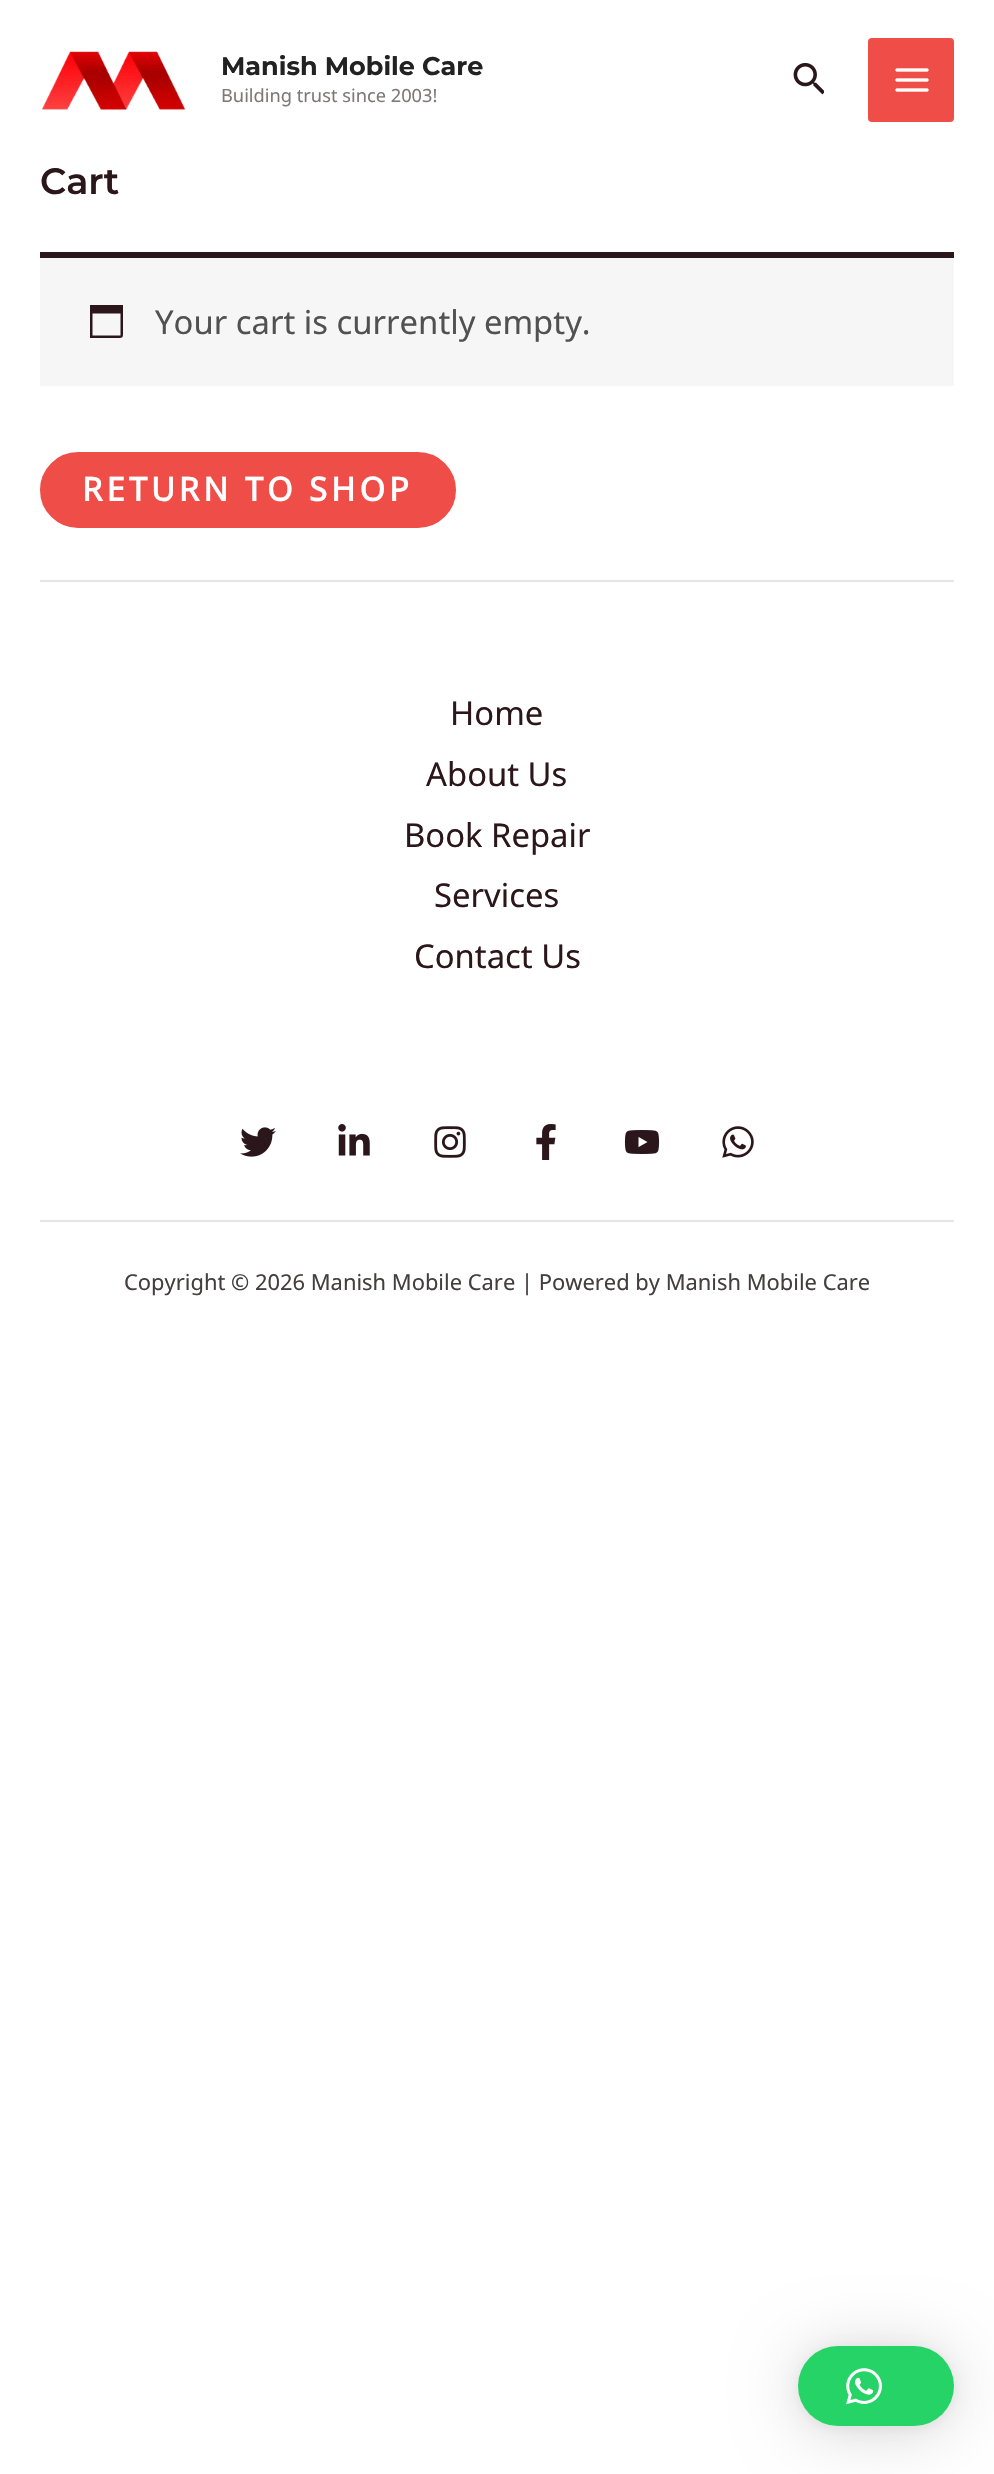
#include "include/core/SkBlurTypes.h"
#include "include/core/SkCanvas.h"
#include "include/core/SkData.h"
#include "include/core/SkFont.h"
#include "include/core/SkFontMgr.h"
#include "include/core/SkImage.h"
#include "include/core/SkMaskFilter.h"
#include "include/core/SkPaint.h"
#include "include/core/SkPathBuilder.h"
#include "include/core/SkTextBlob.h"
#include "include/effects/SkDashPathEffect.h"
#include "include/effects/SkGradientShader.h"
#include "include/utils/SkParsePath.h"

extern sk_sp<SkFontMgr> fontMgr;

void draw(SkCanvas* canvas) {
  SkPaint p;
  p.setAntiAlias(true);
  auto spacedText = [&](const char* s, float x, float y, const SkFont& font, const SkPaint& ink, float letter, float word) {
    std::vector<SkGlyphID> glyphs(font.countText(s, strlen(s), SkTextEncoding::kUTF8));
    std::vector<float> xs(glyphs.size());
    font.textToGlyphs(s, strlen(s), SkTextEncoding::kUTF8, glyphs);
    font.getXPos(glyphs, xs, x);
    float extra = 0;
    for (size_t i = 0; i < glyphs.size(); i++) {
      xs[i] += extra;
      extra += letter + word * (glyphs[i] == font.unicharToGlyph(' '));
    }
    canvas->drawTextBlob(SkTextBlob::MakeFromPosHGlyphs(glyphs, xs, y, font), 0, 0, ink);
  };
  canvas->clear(SK_ColorWHITE);
  canvas->drawImageRect(SkImages::DeferredFromEncodedData(SkData::MakeFromFileName("images/1.png")), SkRect::MakeLTRB(41, 51, 186, 110), SkSamplingOptions());
  canvas->drawImageRect(SkImages::DeferredFromEncodedData(SkData::MakeFromFileName("images/2.png")), SkRect::MakeLTRB(793, 62, 824, 95), SkSamplingOptions());
  p.setColor(SkColorSetRGB(239, 77, 72));
  canvas->drawRoundRect(SkRect::MakeLTRB(868, 38, 954, 122), 4, 4, p);
  canvas->drawImageRect(SkImages::DeferredFromEncodedData(SkData::MakeFromFileName("images/3.png")), SkRect::MakeLTRB(895, 68, 929, 92), SkSamplingOptions());
  p.setColor(SkColorSetRGB(247, 246, 247));
  canvas->drawRect(SkRect::MakeLTRB(40, 258, 954, 386), p);
  p.setColor(SkColorSetRGB(43, 22, 27));
  canvas->drawRect(SkRect::MakeLTRB(40, 252, 954, 258), p);
  canvas->drawPath(SkPathBuilder().moveTo(120.5f, 313.5f).lineTo(92.5f, 313.5f).lineTo(92.5f, 335.5f).lineTo(120.5f, 335.5f).close().moveTo(123, 305).lineTo(123, 330.5f).cubicTo(123, 338.5f, 123.5f, 338, 115.5f, 338).lineTo(90, 338).lineTo(90, 305).close().detach(), p);
  p.setColor(SkColorSetRGB(239, 77, 72));
  canvas->drawRoundRect(SkRect::MakeLTRB(41, 453, 455, 527), 37, 37, p);
  p.setStyle(SkPaint::kStroke_Style);
  p.setStrokeWidth(2);
  canvas->drawRoundRect(SkRect::MakeLTRB(41, 453, 455, 527), 37, 37, p);
  p.setStyle(SkPaint::kFill_Style);
  p.setColor(SkColorSetRGB(230, 230, 230));
  canvas->drawRect(SkRect::MakeLTRB(40, 580, 954, 582), p);
  canvas->drawImageRect(SkImages::DeferredFromEncodedData(SkData::MakeFromFileName("images/4.png")), SkRect::MakeLTRB(240, 1127, 276, 1157), SkSamplingOptions());
  canvas->drawImageRect(SkImages::DeferredFromEncodedData(SkData::MakeFromFileName("images/5.png")), SkRect::MakeLTRB(338, 1124, 370, 1156), SkSamplingOptions());
  canvas->drawImageRect(SkImages::DeferredFromEncodedData(SkData::MakeFromFileName("images/6.png")), SkRect::MakeLTRB(434, 1126, 466, 1158), SkSamplingOptions());
  canvas->drawImageRect(SkImages::DeferredFromEncodedData(SkData::MakeFromFileName("images/7.png")), SkRect::MakeLTRB(536, 1124, 556, 1160), SkSamplingOptions());
  canvas->drawImageRect(SkImages::DeferredFromEncodedData(SkData::MakeFromFileName("images/8.png")), SkRect::MakeLTRB(624, 1130, 660, 1154), SkSamplingOptions());
  canvas->drawImageRect(SkImages::DeferredFromEncodedData(SkData::MakeFromFileName("images/9.png")), SkRect::MakeLTRB(722, 1126, 754, 1158), SkSamplingOptions());
  canvas->drawRect(SkRect::MakeLTRB(40, 1220, 954, 1222), p);
  p.setColor(SkColorSetARGB(41, 0, 0, 0));
  p.setMaskFilter(SkMaskFilter::MakeBlur(kNormal_SkBlurStyle, 32));
  canvas->drawRoundRect(SkRect::MakeLTRB(798, 2350, 954, 2430), 40, 40, p);
  p.setMaskFilter(nullptr);
  p.setColor(SkColorSetARGB(15, 0, 0, 0));
  p.setMaskFilter(SkMaskFilter::MakeBlur(kNormal_SkBlurStyle, 6));
  canvas->drawRoundRect(SkRect::MakeLTRB(798, 2348, 954, 2428), 40, 40, p);
  p.setMaskFilter(nullptr);
  p.setColor(SkColorSetRGB(37, 211, 102));
  canvas->drawRoundRect(SkRect::MakeLTRB(798, 2346, 954, 2426), 40, 40, p);
  canvas->drawImageRect(SkImages::DeferredFromEncodedData(SkData::MakeFromFileName("images/10.png")), SkRect::MakeLTRB(846, 2368, 882, 2405), SkSamplingOptions());
  SkFont font1(fontMgr->matchFamilyStyle("Montserrat", SkFontStyle::Bold()), 25.5f);
  font1.setSubpixel(true);
  p.setColor(SkColorSetRGB(34, 34, 34));
  canvas->drawString("Manish Mobile Care", 221, 75, font1, p);
  SkFont font2(fontMgr->matchFamilyStyle("Noto Sans Hatran", SkFontStyle::Normal()), 18.25f);
  font2.setSubpixel(true);
  p.setColor(SkColorSetRGB(128, 120, 120));
  canvas->drawString("Building trust since 2003!", 221, 102, font2, p);
  SkFont font3(fontMgr->matchFamilyStyle("Montserrat", SkFontStyle(600, SkFontStyle::kNormal_Width, SkFontStyle::kUpright_Slant)), 36.5f);
  font3.setSubpixel(true);
  p.setColor(SkColorSetRGB(43, 22, 27));
  canvas->drawString("Cart", 40, 194, font3, p);
  SkFont font4(fontMgr->matchFamilyStyle("Noto Sans Hatran", SkFontStyle::Normal()), 32.8f);
  font4.setSubpixel(true);
  p.setColor(SkColorSetRGB(81, 81, 81));
  canvas->drawString("Your cart is currently empty.", 155, 334, font4, p);
  SkFont font5(fontMgr->matchFamilyStyle("Noto Sans Hatran", SkFontStyle::Bold()), 32.8f);
  font5.setSubpixel(true);
  p.setColor(SK_ColorWHITE);
  spacedText("RETURN TO SHOP", 82, 501, font5, p, 4, 0);
  p.setColor(SkColorSetRGB(43, 22, 27));
  canvas->drawString("Home", 450, 725, font4, p);
  canvas->drawString("About Us", 426, 786, font4, p);
  canvas->drawString("Book Repair", 404, 847, font4, p);
  canvas->drawString("Services", 434, 907, font4, p);
  canvas->drawString("Contact Us", 414, 968, font4, p);
  SkFont font6(fontMgr->matchFamilyStyle("Noto Sans Hatran", SkFontStyle::Normal()), 21.9f);
  font6.setSubpixel(true);
  p.setColor(SkColorSetRGB(69, 62, 62));
  canvas->drawString("Copyright © 2026 Manish Mobile Care | Powered by Manish Mobile Care", 124, 1290, font6, p);
}
